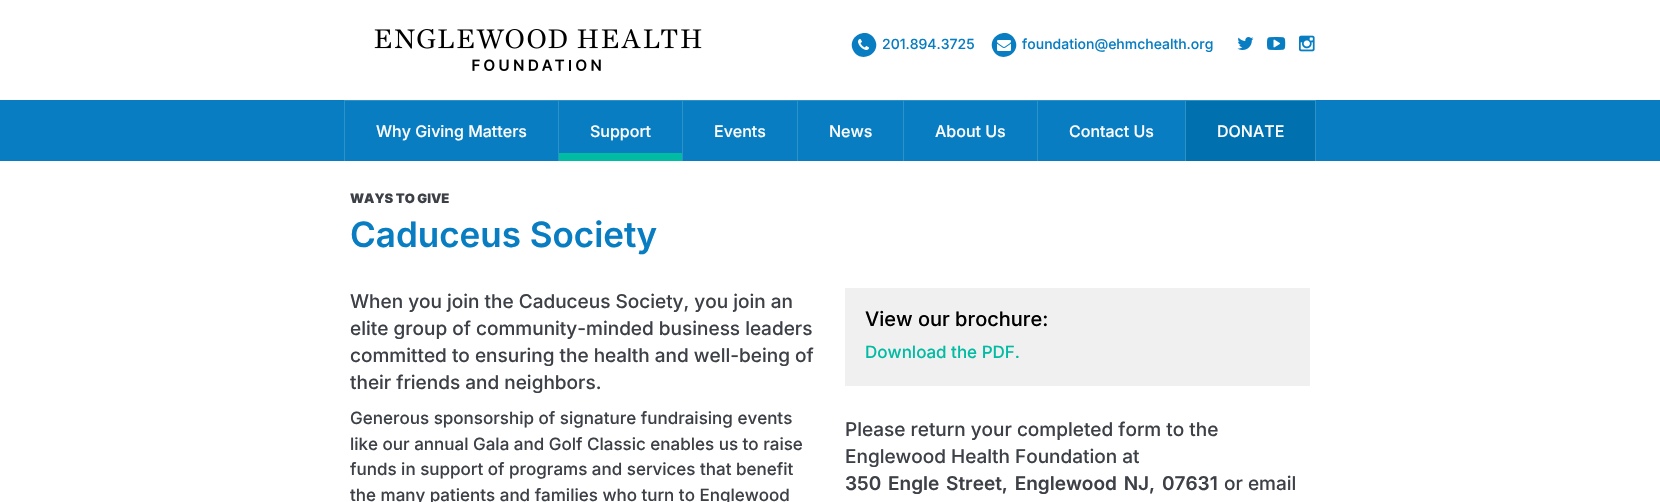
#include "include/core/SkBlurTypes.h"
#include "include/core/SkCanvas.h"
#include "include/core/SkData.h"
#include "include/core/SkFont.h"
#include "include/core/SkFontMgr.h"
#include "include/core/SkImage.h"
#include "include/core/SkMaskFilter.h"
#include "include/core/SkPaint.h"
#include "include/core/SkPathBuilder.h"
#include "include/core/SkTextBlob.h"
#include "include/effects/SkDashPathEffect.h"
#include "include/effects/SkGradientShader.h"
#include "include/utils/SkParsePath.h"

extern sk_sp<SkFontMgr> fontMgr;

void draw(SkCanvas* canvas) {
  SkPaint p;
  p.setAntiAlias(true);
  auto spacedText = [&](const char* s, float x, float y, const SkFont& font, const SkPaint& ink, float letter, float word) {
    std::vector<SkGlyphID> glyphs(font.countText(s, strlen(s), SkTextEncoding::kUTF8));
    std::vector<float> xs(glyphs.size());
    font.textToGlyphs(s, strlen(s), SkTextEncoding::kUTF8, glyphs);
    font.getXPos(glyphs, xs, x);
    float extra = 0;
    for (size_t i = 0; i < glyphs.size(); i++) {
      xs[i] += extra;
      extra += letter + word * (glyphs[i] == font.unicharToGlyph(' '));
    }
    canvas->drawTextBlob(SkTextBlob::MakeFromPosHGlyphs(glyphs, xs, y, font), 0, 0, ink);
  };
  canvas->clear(SK_ColorWHITE);
  canvas->drawImageRect(SkImages::DeferredFromEncodedData(SkData::MakeFromFileName("images/1.png")), SkRect::MakeLTRB(374, 29, 702, 71), SkSamplingOptions());
  p.setColor(SkColorSetRGB(8, 125, 194));
  canvas->drawPath(SkPathBuilder().moveTo(874.5f, 39).cubicTo(882.5f, 52.5f, 861.5f, 64.5f, 853.5f, 51).cubicTo(845.5f, 37.5f, 866.5f, 25.5f, 874.5f, 39).close().detach(), p);
  canvas->drawImageRect(SkImages::DeferredFromEncodedData(SkData::MakeFromFileName("images/2.png")), SkRect::MakeLTRB(858, 39, 869, 50), SkSamplingOptions());
  canvas->drawPath(SkPathBuilder().moveTo(1014.5f, 39).cubicTo(1022.5f, 52.5f, 1001.5f, 64.5f, 993.5f, 51).cubicTo(985.5f, 37.5f, 1006.5f, 25.5f, 1014.5f, 39).close().detach(), p);
  canvas->drawImageRect(SkImages::DeferredFromEncodedData(SkData::MakeFromFileName("images/3.png")), SkRect::MakeLTRB(997, 40, 1011, 51), SkSamplingOptions());
  canvas->drawImageRect(SkImages::DeferredFromEncodedData(SkData::MakeFromFileName("images/4.png")), SkRect::MakeLTRB(1237, 37, 1254, 50), SkSamplingOptions());
  canvas->drawImageRect(SkImages::DeferredFromEncodedData(SkData::MakeFromFileName("images/5.png")), SkRect::MakeLTRB(1267, 37, 1286, 50), SkSamplingOptions());
  canvas->drawImageRect(SkImages::DeferredFromEncodedData(SkData::MakeFromFileName("images/6.png")), SkRect::MakeLTRB(1299, 35, 1315, 52), SkSamplingOptions());
  canvas->drawRect(SkRect::MakeLTRB(0, 100, 1660, 161), p);
  p.setColor(SkColorSetRGB(44, 147, 200));
  canvas->drawRect(SkRect::MakeLTRB(558, 100, 559, 161), p);
  canvas->drawRect(SkRect::MakeLTRB(344, 100, 345, 161), p);
  canvas->drawRect(SkRect::MakeLTRB(345, 100, 558, 101), p);
  canvas->drawRect(SkRect::MakeLTRB(682, 100, 683, 161), p);
  canvas->drawRect(SkRect::MakeLTRB(559, 100, 682, 101), p);
  p.setColor(SkColorSetRGB(1, 187, 163));
  canvas->drawRect(SkRect::MakeLTRB(559, 153, 682, 161), p);
  p.setColor(SkColorSetRGB(44, 147, 200));
  canvas->drawRect(SkRect::MakeLTRB(797, 100, 798, 161), p);
  canvas->drawRect(SkRect::MakeLTRB(683, 100, 797, 101), p);
  canvas->drawRect(SkRect::MakeLTRB(903, 100, 904, 161), p);
  canvas->drawRect(SkRect::MakeLTRB(798, 100, 903, 101), p);
  canvas->drawRect(SkRect::MakeLTRB(1037, 100, 1038, 161), p);
  canvas->drawRect(SkRect::MakeLTRB(904, 100, 1037, 101), p);
  canvas->drawRect(SkRect::MakeLTRB(1185, 100, 1186, 161), p);
  canvas->drawRect(SkRect::MakeLTRB(1038, 100, 1185, 101), p);
  canvas->drawRect(SkRect::MakeLTRB(1315, 100, 1316, 161), p);
  p.setColor(SkColorSetRGB(1, 112, 175));
  canvas->drawRect(SkRect::MakeLTRB(1186, 101, 1315, 161), p);
  p.setColor(SkColorSetRGB(44, 147, 200));
  canvas->drawRect(SkRect::MakeLTRB(1186, 100, 1315, 101), p);
  p.setColor(SkColorSetRGB(240, 240, 240));
  canvas->drawRect(SkRect::MakeLTRB(845, 288, 1310, 386), p);
  SkFont font1(fontMgr->matchFamilyStyle("Inter", SkFontStyle(500, SkFontStyle::kNormal_Width, SkFontStyle::kUpright_Slant)), 14);
  font1.setSubpixel(true);
  p.setColor(SkColorSetRGB(8, 125, 194));
  canvas->drawString("201.894.3725", 882, 49, font1, p);
  canvas->drawString("foundation@ehmchealth.org", 1022, 49, font1, p);
  SkFont font2(fontMgr->matchFamilyStyle("Inter", SkFontStyle(500, SkFontStyle::kNormal_Width, SkFontStyle::kUpright_Slant)), 16);
  font2.setSubpixel(true);
  p.setColor(SK_ColorWHITE);
  canvas->drawString("Why Giving Matters", 376, 137, font2, p);
  canvas->drawString("Support", 590, 137, font2, p);
  canvas->drawString("Events", 714, 137, font2, p);
  canvas->drawString("News", 829, 137, font2, p);
  canvas->drawString("About Us", 935, 137, font2, p);
  canvas->drawString("Contact Us", 1069, 137, font2, p);
  canvas->drawString("DONATE", 1217, 137, font2, p);
  SkFont font3(fontMgr->matchFamilyStyle("Inter", SkFontStyle(900, SkFontStyle::kNormal_Width, SkFontStyle::kUpright_Slant)), 13);
  font3.setSubpixel(true);
  p.setColor(SkColorSetRGB(61, 65, 71));
  canvas->drawString("WAYS TO GIVE", 350, 203, font3, p);
  SkFont font4(fontMgr->matchFamilyStyle("Inter", SkFontStyle(600, SkFontStyle::kNormal_Width, SkFontStyle::kUpright_Slant)), 35);
  font4.setSubpixel(true);
  p.setColor(SkColorSetRGB(8, 125, 194));
  canvas->drawString("Caduceus Society", 350, 247, font4, p);
  SkFont font5(fontMgr->matchFamilyStyle("Inter", SkFontStyle(500, SkFontStyle::kNormal_Width, SkFontStyle::kUpright_Slant)), 19);
  font5.setSubpixel(true);
  p.setColor(SkColorSetRGB(61, 65, 71));
  canvas->drawString("When you join the Caduceus Society, you join an", 350, 308, font5, p);
  canvas->drawString("elite group of community-minded business leaders", 350, 335, font5, p);
  canvas->drawString("committed to ensuring the health and well-being of", 350, 362, font5, p);
  canvas->drawString("their friends and neighbors.", 350, 389, font5, p);
  SkFont font6(fontMgr->matchFamilyStyle("Inter", SkFontStyle(500, SkFontStyle::kNormal_Width, SkFontStyle::kUpright_Slant)), 17);
  font6.setSubpixel(true);
  canvas->drawString("Generous sponsorship of signature fundraising events", 350, 424, font6, p);
  canvas->drawString("like our annual Gala and Golf Classic enables us to raise", 350, 450, font6, p);
  canvas->drawString("funds in support of programs and services that benefit", 350, 475, font6, p);
  canvas->drawString("the many patients and families who turn to Englewood", 350, 501, font6, p);
  SkFont font7(fontMgr->matchFamilyStyle("Inter", SkFontStyle(500, SkFontStyle::kNormal_Width, SkFontStyle::kUpright_Slant)), 20);
  font7.setSubpixel(true);
  p.setColor(SK_ColorBLACK);
  canvas->drawString("View our brochure:", 865, 326, font7, p);
  p.setColor(SkColorSetRGB(1, 187, 163));
  canvas->drawString("Download the PDF.", 865, 358, font6, p);
  p.setColor(SkColorSetRGB(61, 65, 71));
  canvas->drawString("Please return your completed form to the", 845, 436, font5, p);
  canvas->drawString("Englewood Health Foundation at", 845, 463, font5, p);
  SkFont font8(fontMgr->matchFamilyStyle("Inter", SkFontStyle(600, SkFontStyle::kNormal_Width, SkFontStyle::kUpright_Slant)), 19);
  font8.setSubpixel(true);
  spacedText("350 Engle Street, Englewood NJ, 07631", 845, 490, font8, p, 0, 2);
  canvas->drawString("or email", 1224, 490, font5, p);
}
